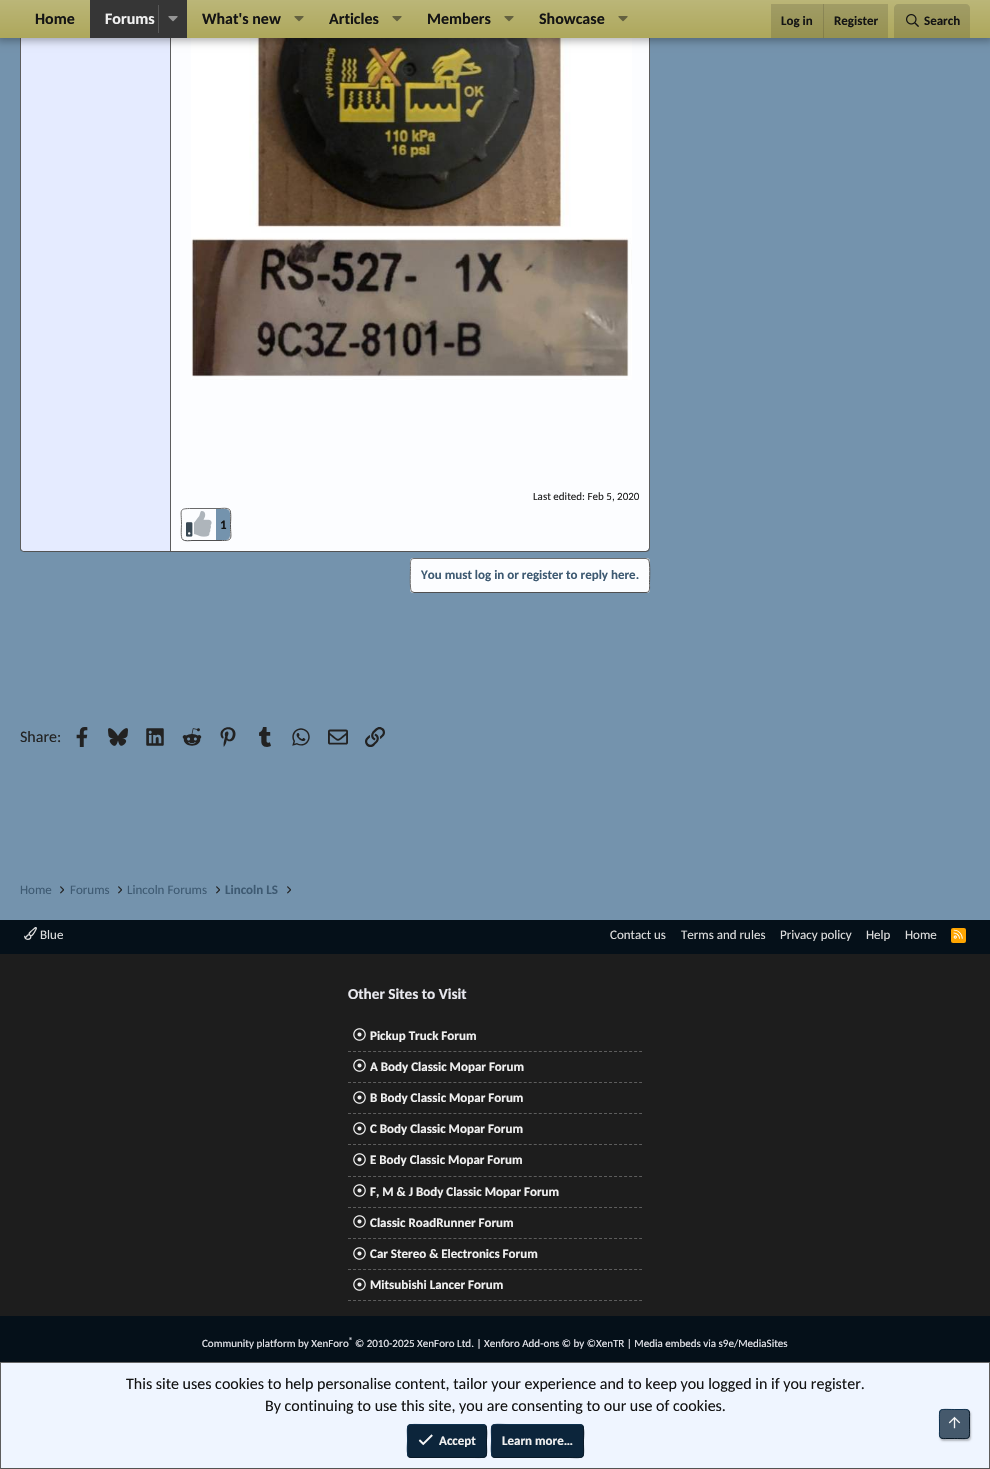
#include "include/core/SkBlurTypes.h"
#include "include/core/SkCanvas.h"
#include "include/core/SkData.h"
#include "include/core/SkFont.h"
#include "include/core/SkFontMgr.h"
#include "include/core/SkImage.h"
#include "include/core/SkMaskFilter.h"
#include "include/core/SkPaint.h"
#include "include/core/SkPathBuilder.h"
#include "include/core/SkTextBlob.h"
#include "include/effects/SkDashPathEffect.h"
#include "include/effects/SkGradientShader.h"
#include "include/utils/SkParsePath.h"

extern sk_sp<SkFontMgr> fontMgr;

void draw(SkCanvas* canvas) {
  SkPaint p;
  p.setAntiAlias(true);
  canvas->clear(SkColorSetRGB(116, 147, 173));
  p.setColor(SkColorSetRGB(252, 253, 255));
  canvas->drawPath(SkPathBuilder().moveTo(24, -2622).lineTo(646, -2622).cubicTo(648, -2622, 649, -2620, 649, -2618).lineTo(649, 548).cubicTo(649, 550, 648, 551, 646, 551).lineTo(24, 551).cubicTo(22, 551, 21, 550, 21, 548).lineTo(21, -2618).cubicTo(21, -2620, 22, -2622, 24, -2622).close().detach(), p);
  p.setColor(SkColorSetRGB(93, 93, 93));
  canvas->drawPath(SkPathBuilder().moveTo(650, -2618).cubicTo(650, -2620, 648, -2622, 646, -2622).cubicTo(648, -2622, 649, -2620, 649, -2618).lineTo(649, 548).lineTo(648, 550).lineTo(649, 551).lineTo(650, 548).close().detach(), p);
  p.setColor(SkColorSetRGB(83, 83, 83));
  canvas->drawPath(SkPathBuilder().moveTo(24, 552).lineTo(646, 552).lineTo(649, 551).lineTo(648, 550).lineTo(646, 551).lineTo(24, 551).lineTo(22, 550).lineTo(21, 551).close().detach(), p);
  p.setColor(SkColorSetRGB(93, 93, 93));
  canvas->drawPath(SkPathBuilder().moveTo(24, -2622).cubicTo(22, -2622, 20, -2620, 20, -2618).lineTo(20, 548).cubicTo(20, 549, 20, 550, 21, 551).lineTo(22, 550).lineTo(21, 548).lineTo(21, -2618).cubicTo(21, -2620, 22, -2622, 24, -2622).close().detach(), p);
  p.setColor(SkColorSetRGB(229, 235, 255));
  canvas->drawPath(SkPathBuilder().moveTo(24, -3).lineTo(171, -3).lineTo(171, 551).lineTo(24, 551).cubicTo(22.5f, 551, 21, 549.5f, 21, 548).lineTo(21, 0).cubicTo(21, -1.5f, 22.5f, -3, 24, -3).close().detach(), p);
  p.setColor(SkColorSetRGB(93, 93, 93));
  canvas->drawRect(SkRect::MakeLTRB(170, 38, 171, 551), p);
  canvas->drawImageRect(SkImages::DeferredFromEncodedData(SkData::MakeFromFileName("images/4.png")), SkRect::MakeLTRB(191, 38, 632, 380), SkSamplingOptions());
  p.setColor(SkColorSetARGB(77, 0, 0, 0));
  p.setMaskFilter(SkMaskFilter::MakeBlur(kNormal_SkBlurStyle, 4));
  canvas->drawRect(SkRect::MakeLTRB(-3, -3, 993, 41), p);
  p.setMaskFilter(nullptr);
  {
    const SkColor colors[] = {SkColorSetRGB(187, 182, 120), SkColorSetRGB(173, 167, 91)};
    const float stops[] = {0, 1};
    const SkPoint ends[] = {{495, 0}, {495, 38}};
    p.setShader(SkGradientShader::MakeLinear(ends, colors, stops, 2, SkTileMode::kClamp));
    p.setAlpha(255);
  }
  canvas->drawRect(SkRect::MakeLTRB(0, 0, 990, 38), p);
  {
    const SkColor colors[] = {SkColorSetRGB(162, 158, 105), SkColorSetRGB(150, 145, 80)};
    const float stops[] = {0, 1};
    const SkPoint ends[] = {{495, 0}, {495, 38}};
    p.setShader(SkGradientShader::MakeLinear(ends, colors, stops, 2, SkTileMode::kClamp));
    p.setAlpha(255);
  }
  canvas->drawRect(SkRect::MakeLTRB(771, 4, 888, 38), p);
  {
    const SkColor colors[] = {SkColorSetRGB(141, 137, 92), SkColorSetRGB(131, 126, 71)};
    const float stops[] = {0, 1};
    const SkPoint ends[] = {{495, 0}, {495, 38}};
    p.setShader(SkGradientShader::MakeLinear(ends, colors, stops, 2, SkTileMode::kClamp));
    p.setAlpha(255);
  }
  canvas->drawRect(SkRect::MakeLTRB(823, 4, 824, 38), p);
  p.setShader(nullptr);
  p.setColor(SkColorSetRGB(54, 54, 54));
  canvas->drawRect(SkRect::MakeLTRB(90, 0, 187, 38), p);
  p.setColor(SkColorSetRGB(87, 87, 87));
  canvas->drawRect(SkRect::MakeLTRB(158, 5, 159, 33), p);
  canvas->drawImageRect(SkImages::DeferredFromEncodedData(SkData::MakeFromFileName("images/1.png")), SkRect::MakeLTRB(168, 16, 178, 22), SkSamplingOptions());
  canvas->drawImageRect(SkImages::DeferredFromEncodedData(SkData::MakeFromFileName("images/2.png")), SkRect::MakeLTRB(294, 16, 304, 22), SkSamplingOptions());
  canvas->drawImageRect(SkImages::DeferredFromEncodedData(SkData::MakeFromFileName("images/2.png")), SkRect::MakeLTRB(392, 16, 402, 22), SkSamplingOptions());
  canvas->drawImageRect(SkImages::DeferredFromEncodedData(SkData::MakeFromFileName("images/2.png")), SkRect::MakeLTRB(504, 16, 514, 22), SkSamplingOptions());
  canvas->drawImageRect(SkImages::DeferredFromEncodedData(SkData::MakeFromFileName("images/2.png")), SkRect::MakeLTRB(618, 16, 628, 22), SkSamplingOptions());
  p.setColor(SkColorSetARGB(38, 20, 20, 20));
  canvas->drawPath(SkPathBuilder().moveTo(898, 4).lineTo(966, 4).cubicTo(968, 4, 970, 6, 970, 8).lineTo(970, 38).lineTo(894, 38).lineTo(894, 8).cubicTo(894, 6, 896, 4, 898, 4).close().detach(), p);
  canvas->drawImageRect(SkImages::DeferredFromEncodedData(SkData::MakeFromFileName("images/3.png")), SkRect::MakeLTRB(906, 14, 919, 27), SkSamplingOptions());
  p.setStyle(SkPaint::kStroke_Style);
  p.setStrokeWidth(1);
  p.setColor(SkColorSetRGB(80, 80, 80));
  canvas->drawPath(SkPathBuilder().moveTo(229.5f, 509.5f).cubicTo(231.5f, 511.5f, 230.5f, 521.5f, 230.5f, 524.5f).cubicTo(230.5f, 539.5f, 234, 540.5f, 220, 540.5f).lineTo(192, 540.5f).cubicTo(190.5f, 540.5f, 184.5f, 541.5f, 182.5f, 539.5f).detach(), p);
  p.setColor(SkColorSetRGB(106, 106, 106));
  canvas->drawPath(SkPathBuilder().moveTo(182.5f, 539.5f).cubicTo(180.5f, 537.5f, 181.5f, 527.5f, 181.5f, 524.5f).cubicTo(181.5f, 509.5f, 178, 508.5f, 192, 508.5f).lineTo(220, 508.5f).cubicTo(221.5f, 508.5f, 227.5f, 507.5f, 229.5f, 509.5f).detach(), p);
  canvas->drawImageRect(SkImages::DeferredFromEncodedData(SkData::MakeFromFileName("images/5.png")), SkRect::MakeLTRB(186, 511, 212, 537), SkSamplingOptions());
  p.setStyle(SkPaint::kFill_Style);
  p.setColor(SkColorSetRGB(116, 147, 173));
  canvas->drawPath(SkPathBuilder().moveTo(216, 509).lineTo(226, 509).cubicTo(228, 509, 230, 511, 230, 513).lineTo(230, 536).cubicTo(230, 538, 228, 540, 226, 540).lineTo(216, 540).close().detach(), p);
  p.setColor(SkColorSetRGB(252, 253, 255));
  canvas->drawRoundRect(SkRect::MakeLTRB(410, 558, 650, 593), 4, 4, p);
  p.setStyle(SkPaint::kStroke_Style);
  p.setColor(SkColorSetRGB(80, 80, 80));
  canvas->drawPath(SkPathBuilder().moveTo(648.5f, 559.5f).cubicTo(650.5f, 562, 649.5f, 580.5f, 649.5f, 584.5f).cubicTo(649.5f, 587, 650.5f, 592.5f, 646, 592.5f).lineTo(414, 592.5f).lineTo(411.5f, 591.5f).detach(), p);
  p.setColor(SkColorSetRGB(106, 106, 106));
  canvas->drawPath(SkPathBuilder().moveTo(411.5f, 591.5f).cubicTo(409.5f, 589, 410.5f, 570.5f, 410.5f, 566.5f).cubicTo(410.5f, 564, 409.5f, 558.5f, 414, 558.5f).lineTo(646, 558.5f).lineTo(648.5f, 559.5f).detach(), p);
  canvas->drawImageRect(SkImages::DeferredFromEncodedData(SkData::MakeFromFileName("images/6.png")), SkRect::MakeLTRB(76, 727, 88, 747), SkSamplingOptions());
  canvas->drawImageRect(SkImages::DeferredFromEncodedData(SkData::MakeFromFileName("images/7.png")), SkRect::MakeLTRB(108, 728, 128, 746), SkSamplingOptions());
  canvas->drawImageRect(SkImages::DeferredFromEncodedData(SkData::MakeFromFileName("images/8.png")), SkRect::MakeLTRB(146, 728, 164, 746), SkSamplingOptions());
  canvas->drawImageRect(SkImages::DeferredFromEncodedData(SkData::MakeFromFileName("images/9.png")), SkRect::MakeLTRB(182, 728, 202, 746), SkSamplingOptions());
  canvas->drawImageRect(SkImages::DeferredFromEncodedData(SkData::MakeFromFileName("images/10.png")), SkRect::MakeLTRB(220, 727, 236, 747), SkSamplingOptions());
  canvas->drawImageRect(SkImages::DeferredFromEncodedData(SkData::MakeFromFileName("images/11.png")), SkRect::MakeLTRB(259, 727, 271, 747), SkSamplingOptions());
  canvas->drawImageRect(SkImages::DeferredFromEncodedData(SkData::MakeFromFileName("images/12.png")), SkRect::MakeLTRB(292, 728, 310, 746), SkSamplingOptions());
  canvas->drawImageRect(SkImages::DeferredFromEncodedData(SkData::MakeFromFileName("images/13.png")), SkRect::MakeLTRB(328, 729, 348, 745), SkSamplingOptions());
  canvas->drawImageRect(SkImages::DeferredFromEncodedData(SkData::MakeFromFileName("images/14.png")), SkRect::MakeLTRB(365, 727, 385, 747), SkSamplingOptions());
  canvas->drawImageRect(SkImages::DeferredFromEncodedData(SkData::MakeFromFileName("images/15.png")), SkRect::MakeLTRB(60, 886, 64, 894), SkSamplingOptions());
  canvas->drawImageRect(SkImages::DeferredFromEncodedData(SkData::MakeFromFileName("images/15.png")), SkRect::MakeLTRB(118, 886, 122, 894), SkSamplingOptions());
  canvas->drawImageRect(SkImages::DeferredFromEncodedData(SkData::MakeFromFileName("images/15.png")), SkRect::MakeLTRB(216, 886, 220, 894), SkSamplingOptions());
  canvas->drawImageRect(SkImages::DeferredFromEncodedData(SkData::MakeFromFileName("images/15.png")), SkRect::MakeLTRB(287, 886, 291, 894), SkSamplingOptions());
  p.setStyle(SkPaint::kFill_Style);
  p.setColor(SkColorSetRGB(5, 16, 25));
  canvas->drawRect(SkRect::MakeLTRB(0, 920, 990, 1362), p);
  canvas->drawImageRect(SkImages::DeferredFromEncodedData(SkData::MakeFromFileName("images/16.png")), SkRect::MakeLTRB(24, 927, 37, 940), SkSamplingOptions());
  p.setColor(SkColorSetRGB(255, 165, 0));
  canvas->drawRoundRect(SkRect::MakeLTRB(951, 928, 966, 943), 2, 2, p);
  canvas->drawImageRect(SkImages::DeferredFromEncodedData(SkData::MakeFromFileName("images/17.png")), SkRect::MakeLTRB(953, 929, 963, 939), SkSamplingOptions());
  p.setColor(SkColorSetRGB(29, 29, 29));
  canvas->drawRect(SkRect::MakeLTRB(0, 954, 990, 1316), p);
  p.setStyle(SkPaint::kStroke_Style);
  p.setColor(SkColorSetRGB(93, 93, 93));
  p.setPathEffect(SkDashPathEffect::Make({{3, 2.02f}}, 0));
  canvas->drawPath(SkPathBuilder().moveTo(348, 1051.5f).lineTo(642, 1051.5f).detach(), p);
  p.setPathEffect(nullptr);
  canvas->drawImageRect(SkImages::DeferredFromEncodedData(SkData::MakeFromFileName("images/18.png")), SkRect::MakeLTRB(353, 1028, 366, 1041), SkSamplingOptions());
  p.setPathEffect(SkDashPathEffect::Make({{3, 2.02f}}, 0));
  canvas->drawPath(SkPathBuilder().moveTo(348, 1082.5f).lineTo(642, 1082.5f).detach(), p);
  p.setPathEffect(nullptr);
  canvas->drawImageRect(SkImages::DeferredFromEncodedData(SkData::MakeFromFileName("images/18.png")), SkRect::MakeLTRB(353, 1059, 366, 1072), SkSamplingOptions());
  p.setPathEffect(SkDashPathEffect::Make({{3, 2.02f}}, 0));
  canvas->drawPath(SkPathBuilder().moveTo(348, 1113.5f).lineTo(642, 1113.5f).detach(), p);
  p.setPathEffect(nullptr);
  canvas->drawImageRect(SkImages::DeferredFromEncodedData(SkData::MakeFromFileName("images/18.png")), SkRect::MakeLTRB(353, 1091, 366, 1104), SkSamplingOptions());
  p.setPathEffect(SkDashPathEffect::Make({{3, 2.02f}}, 0));
  canvas->drawPath(SkPathBuilder().moveTo(348, 1144.5f).lineTo(642, 1144.5f).detach(), p);
  p.setPathEffect(nullptr);
  canvas->drawImageRect(SkImages::DeferredFromEncodedData(SkData::MakeFromFileName("images/18.png")), SkRect::MakeLTRB(353, 1122, 366, 1135), SkSamplingOptions());
  p.setPathEffect(SkDashPathEffect::Make({{3, 2.02f}}, 0));
  canvas->drawPath(SkPathBuilder().moveTo(348, 1176.5f).lineTo(642, 1176.5f).detach(), p);
  p.setPathEffect(nullptr);
  canvas->drawImageRect(SkImages::DeferredFromEncodedData(SkData::MakeFromFileName("images/18.png")), SkRect::MakeLTRB(353, 1153, 366, 1166), SkSamplingOptions());
  p.setPathEffect(SkDashPathEffect::Make({{3, 2.02f}}, 0));
  canvas->drawPath(SkPathBuilder().moveTo(348, 1207.5f).lineTo(642, 1207.5f).detach(), p);
  p.setPathEffect(nullptr);
  canvas->drawImageRect(SkImages::DeferredFromEncodedData(SkData::MakeFromFileName("images/18.png")), SkRect::MakeLTRB(353, 1184, 366, 1197), SkSamplingOptions());
  p.setPathEffect(SkDashPathEffect::Make({{3, 2.02f}}, 0));
  canvas->drawPath(SkPathBuilder().moveTo(348, 1238.5f).lineTo(642, 1238.5f).detach(), p);
  p.setPathEffect(nullptr);
  canvas->drawImageRect(SkImages::DeferredFromEncodedData(SkData::MakeFromFileName("images/18.png")), SkRect::MakeLTRB(353, 1215, 366, 1228), SkSamplingOptions());
  p.setPathEffect(SkDashPathEffect::Make({{3, 2.02f}}, 0));
  canvas->drawPath(SkPathBuilder().moveTo(348, 1269.5f).lineTo(642, 1269.5f).detach(), p);
  p.setPathEffect(nullptr);
  canvas->drawImageRect(SkImages::DeferredFromEncodedData(SkData::MakeFromFileName("images/18.png")), SkRect::MakeLTRB(353, 1247, 366, 1260), SkSamplingOptions());
  p.setPathEffect(SkDashPathEffect::Make({{3, 2.02f}}, 0));
  canvas->drawPath(SkPathBuilder().moveTo(348, 1300.5f).lineTo(642, 1300.5f).detach(), p);
  p.setPathEffect(nullptr);
  canvas->drawImageRect(SkImages::DeferredFromEncodedData(SkData::MakeFromFileName("images/18.png")), SkRect::MakeLTRB(353, 1278, 366, 1291), SkSamplingOptions());
  p.setStyle(SkPaint::kFill_Style);
  p.setColor(SkColorSetRGB(239, 245, 255));
  canvas->drawRect(SkRect::MakeLTRB(1, 1363, 989, 1468), p);
  p.setColor(SkColorSetRGB(103, 103, 103));
  canvas->drawRect(SkRect::MakeLTRB(0, 1362, 990, 1363), p);
  p.setColor(SkColorSetRGB(93, 93, 93));
  canvas->drawRect(SkRect::MakeLTRB(989, 1362, 990, 1469), p);
  p.setColor(SkColorSetRGB(83, 83, 83));
  canvas->drawRect(SkRect::MakeLTRB(0, 1468, 990, 1469), p);
  p.setColor(SkColorSetRGB(93, 93, 93));
  canvas->drawRect(SkRect::MakeLTRB(0, 1362, 1, 1469), p);
  p.setColor(SkColorSetRGB(12, 37, 59));
  canvas->drawRoundRect(SkRect::MakeLTRB(407, 1424, 487, 1458), 4, 4, p);
  p.setStyle(SkPaint::kStroke_Style);
  p.setColor(SkColorSetRGB(8, 24, 38));
  canvas->drawPath(SkPathBuilder().moveTo(485.5f, 1425.5f).cubicTo(487.5f, 1428, 486.5f, 1438, 486.5f, 1441).cubicTo(486.5f, 1459.5f, 489.5f, 1457.5f, 471, 1457.5f).lineTo(411, 1457.5f).lineTo(408.5f, 1456.5f).detach(), p);
  p.setColor(SkColorSetRGB(16, 50, 80));
  canvas->drawPath(SkPathBuilder().moveTo(408.5f, 1456.5f).cubicTo(406.5f, 1454, 407.5f, 1444, 407.5f, 1441).cubicTo(407.5f, 1422.5f, 404.5f, 1424.5f, 423, 1424.5f).lineTo(483, 1424.5f).lineTo(485.5f, 1425.5f).detach(), p);
  canvas->drawImageRect(SkImages::DeferredFromEncodedData(SkData::MakeFromFileName("images/19.png")), SkRect::MakeLTRB(418, 1434, 433, 1446), SkSamplingOptions());
  p.setStyle(SkPaint::kFill_Style);
  p.setColor(SkColorSetRGB(12, 37, 59));
  canvas->drawRoundRect(SkRect::MakeLTRB(491, 1424, 584, 1458), 4, 4, p);
  p.setStyle(SkPaint::kStroke_Style);
  p.setColor(SkColorSetRGB(8, 24, 38));
  canvas->drawPath(SkPathBuilder().moveTo(582.5f, 1425.5f).cubicTo(584.5f, 1428, 583.5f, 1438, 583.5f, 1441).cubicTo(583.5f, 1460.5f, 586.5f, 1457.5f, 566, 1457.5f).lineTo(495, 1457.5f).lineTo(492.5f, 1456.5f).detach(), p);
  p.setColor(SkColorSetRGB(16, 50, 80));
  canvas->drawPath(SkPathBuilder().moveTo(492.5f, 1456.5f).cubicTo(490.5f, 1454, 491.5f, 1444, 491.5f, 1441).cubicTo(491.5f, 1421.5f, 488.5f, 1424.5f, 509, 1424.5f).lineTo(580, 1424.5f).lineTo(582.5f, 1425.5f).detach(), p);
  canvas->save();
  canvas->clipPath(SkPathBuilder(SkPathFillType::kEvenOdd).moveTo(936, 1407).lineTo(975, 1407).lineTo(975, 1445).lineTo(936, 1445).close().moveTo(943, 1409).lineTo(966, 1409).cubicTo(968, 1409, 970, 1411, 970, 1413).lineTo(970, 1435).cubicTo(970, 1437, 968, 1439, 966, 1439).lineTo(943, 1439).cubicTo(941, 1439, 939, 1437, 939, 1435).lineTo(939, 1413).cubicTo(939, 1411, 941, 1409, 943, 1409).close().detach(), true);
  p.setStyle(SkPaint::kFill_Style);
  p.setColor(SkColorSetARGB(64, 0, 0, 0));
  p.setMaskFilter(SkMaskFilter::MakeBlur(kNormal_SkBlurStyle, 1));
  canvas->drawRoundRect(SkRect::MakeLTRB(940, 1411, 971, 1441), 4, 4, p);
  p.setMaskFilter(nullptr);
  canvas->restore();
  p.setColor(SkColorSetARGB(191, 12, 37, 59));
  canvas->drawRoundRect(SkRect::MakeLTRB(939, 1409, 970, 1439), 4, 4, p);
  p.setStyle(SkPaint::kStroke_Style);
  p.setColor(SkColorSetRGB(8, 24, 38));
  canvas->drawPath(SkPathBuilder().moveTo(968.5f, 1410.5f).cubicTo(970, 1412, 969.5f, 1415, 969.5f, 1416.5f).lineTo(969.5f, 1424).cubicTo(969.5f, 1441, 971.5f, 1438.5f, 954.5f, 1438.5f).lineTo(947, 1438.5f).cubicTo(945, 1438.5f, 942, 1439, 940.5f, 1437.5f).detach(), p);
  p.setColor(SkColorSetRGB(16, 50, 80));
  canvas->drawPath(SkPathBuilder().moveTo(940.5f, 1437.5f).cubicTo(939, 1436, 939.5f, 1433, 939.5f, 1431.5f).lineTo(939.5f, 1424).cubicTo(939.5f, 1407, 937.5f, 1409.5f, 954.5f, 1409.5f).lineTo(962, 1409.5f).cubicTo(964, 1409.5f, 967, 1409, 968.5f, 1410.5f).detach(), p);
  canvas->drawImageRect(SkImages::DeferredFromEncodedData(SkData::MakeFromFileName("images/20.png")), SkRect::MakeLTRB(948, 1416, 961, 1429), SkSamplingOptions());
  SkFont font1(fontMgr->matchFamilyStyle("Carlito", SkFontStyle::Bold()), 16);
  font1.setSubpixel(true);
  p.setStyle(SkPaint::kFill_Style);
  p.setColor(SkColorSetRGB(20, 20, 20));
  canvas->drawString("Home", 35, 24, font1, p);
  p.setColor(SkColorSetRGB(241, 241, 241));
  canvas->drawString("Forums", 105, 24, font1, p);
  p.setColor(SkColorSetRGB(20, 20, 20));
  canvas->drawString("What's new", 202, 24, font1, p);
  canvas->drawString("Articles", 329, 24, font1, p);
  canvas->drawString("Members", 427, 24, font1, p);
  canvas->drawString("Showcase", 539, 24, font1, p);
  SkFont font2(fontMgr->matchFamilyStyle("Carlito", SkFontStyle::Bold()), 13);
  font2.setSubpixel(true);
  canvas->drawString("Log in", 781, 25, font2, p);
  canvas->drawString("Register", 834, 25, font2, p);
  canvas->drawString("Search", 924, 25, font2, p);
  SkFont font3(fontMgr->matchFamilyStyle("Carlito", SkFontStyle::Normal()), 11);
  font3.setSubpixel(true);
  p.setColor(SkColorSetRGB(34, 34, 34));
  canvas->drawString("Last edited: Feb 5, 2020", 533, 500, font3, p);
  p.setColor(SkColorSetRGB(20, 20, 20));
  canvas->drawString("1", 220, 529, font2, p);
  p.setColor(SkColorSetRGB(62, 90, 114));
  canvas->drawString("You must log in or register to reply here.", 421, 579, font2, p);
  SkFont font4(fontMgr->matchFamilyStyle("Carlito", SkFontStyle::Normal()), 16);
  font4.setSubpixel(true);
  p.setColor(SkColorSetRGB(34, 34, 34));
  canvas->drawString("Share:", 20, 742, font4, p);
  SkFont font5(fontMgr->matchFamilyStyle("Carlito", SkFontStyle::Normal()), 13);
  font5.setSubpixel(true);
  p.setColor(SkColorSetRGB(62, 90, 114));
  canvas->drawString("Home", 20, 894, font5, p);
  canvas->drawString("Forums", 70, 894, font5, p);
  canvas->drawString("Lincoln Forums", 127, 894, font5, p);
  canvas->drawString("Lincoln LS", 225, 894, font2, p);
  p.setColor(SkColorSetRGB(221, 221, 221));
  canvas->drawString("Blue", 40, 939, font5, p);
  canvas->drawString("Contact us", 610, 939, font5, p);
  canvas->drawString("Terms and rules", 681, 939, font5, p);
  canvas->drawString("Privacy policy", 780, 939, font5, p);
  canvas->drawString("Help", 866, 939, font5, p);
  canvas->drawString("Home", 905, 939, font5, p);
  SkFont font6(fontMgr->matchFamilyStyle("Carlito", SkFontStyle::Bold()), 15.25f);
  font6.setSubpixel(true);
  p.setColor(SkColorSetRGB(233, 233, 239));
  canvas->drawString("Other Sites to Visit", 348, 999, font6, p);
  p.setColor(SkColorSetRGB(241, 241, 241));
  canvas->drawString("Pickup Truck Forum", 370, 1040, font2, p);
  canvas->drawString("A Body Classic Mopar Forum", 370, 1071, font2, p);
  canvas->drawString("B Body Classic Mopar Forum", 370, 1102, font2, p);
  canvas->drawString("C Body Classic Mopar Forum", 370, 1133, font2, p);
  canvas->drawString("E Body Classic Mopar Forum", 370, 1164, font2, p);
  canvas->drawString("F, M & J Body Classic Mopar Forum", 370, 1196, font2, p);
  canvas->drawString("Classic RoadRunner Forum", 370, 1227, font2, p);
  canvas->drawString("Car Stereo & Electronics Forum", 370, 1258, font2, p);
  canvas->drawString("Mitsubishi Lancer Forum", 370, 1289, font2, p);
  SkFont font7(fontMgr->matchFamilyStyle("Carlito", SkFontStyle::Normal()), 8);
  font7.setSubpixel(true);
  p.setColor(SkColorSetRGB(233, 233, 239));
  canvas->drawString("®", 349, 1343, font7, p);
  canvas->drawString("Community platform by XenForo", 202, 1347, font3, p);
  canvas->drawString("© 2010-2025 XenForo Ltd. | Xenforo Add-ons © by ©XenTR | Media embeds via s9e/MediaSites", 355, 1347, font3, p);
  p.setColor(SkColorSetRGB(20, 20, 20));
  canvas->drawString("This site uses cookies to help personalise content, tailor your experience and to keep you logged in if you register.", 126, 1389, font4, p);
  canvas->drawString("By continuing to use this site, you are consenting to our use of cookies.", 265, 1411, font4, p);
  p.setColor(SkColorSetRGB(241, 241, 241));
  canvas->drawString("Accept", 439, 1445, font2, p);
  canvas->drawString("Learn more…", 502, 1445, font2, p);
}
